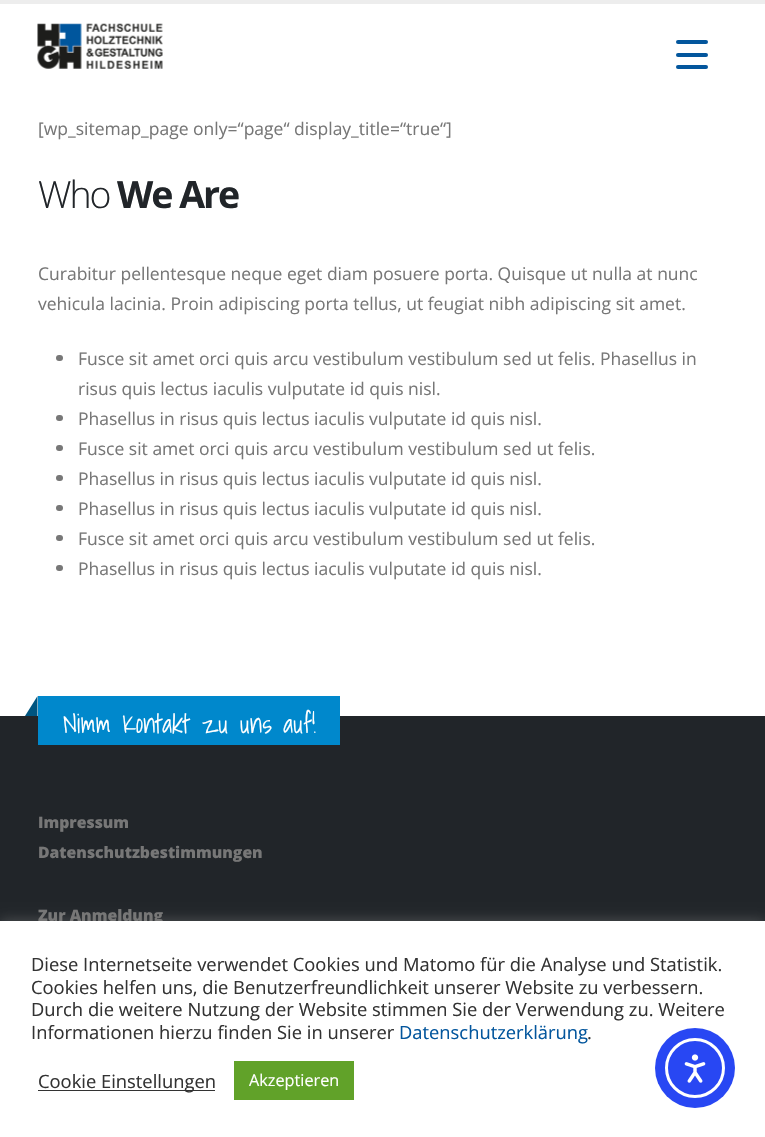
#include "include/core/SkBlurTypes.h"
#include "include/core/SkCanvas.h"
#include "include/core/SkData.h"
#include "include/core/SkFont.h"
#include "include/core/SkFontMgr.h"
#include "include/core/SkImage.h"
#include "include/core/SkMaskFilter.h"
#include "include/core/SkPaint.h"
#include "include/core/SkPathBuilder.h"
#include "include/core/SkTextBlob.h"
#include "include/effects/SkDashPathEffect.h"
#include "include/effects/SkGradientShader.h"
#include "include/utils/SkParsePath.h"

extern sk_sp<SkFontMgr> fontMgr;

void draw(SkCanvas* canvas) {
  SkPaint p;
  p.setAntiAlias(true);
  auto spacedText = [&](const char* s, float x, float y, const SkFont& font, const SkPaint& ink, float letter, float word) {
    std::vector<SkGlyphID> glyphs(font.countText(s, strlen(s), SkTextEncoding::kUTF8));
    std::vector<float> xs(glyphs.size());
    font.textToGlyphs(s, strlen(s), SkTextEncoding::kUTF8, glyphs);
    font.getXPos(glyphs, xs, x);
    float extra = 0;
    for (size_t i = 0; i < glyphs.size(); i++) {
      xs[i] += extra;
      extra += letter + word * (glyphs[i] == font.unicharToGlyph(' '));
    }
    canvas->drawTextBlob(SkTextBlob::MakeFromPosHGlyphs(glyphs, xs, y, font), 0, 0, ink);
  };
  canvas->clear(SK_ColorWHITE);
  p.setColor(SkColorSetRGB(3, 86, 157));
  canvas->drawRoundRect(SkRect::MakeLTRB(676, 53, 708, 57), 2, 2, p);
  canvas->drawRoundRect(SkRect::MakeLTRB(676, 40, 708, 44), 2, 2, p);
  canvas->drawRoundRect(SkRect::MakeLTRB(676, 65, 708, 69), 2, 2, p);
  p.setColor(SkColorSetRGB(237, 237, 237));
  canvas->drawRect(SkRect::MakeLTRB(0, 0, 765, 4), p);
  canvas->drawImageRect(SkImages::DeferredFromEncodedData(SkData::MakeFromFileName("images/1.png")), SkRect::MakeLTRB(37, 23, 163, 69), SkSamplingOptions());
  p.setColor(SkColorSetRGB(119, 119, 119));
  canvas->drawRoundRect(SkRect::MakeLTRB(56, 355, 63, 361), 3, 3, p);
  canvas->drawRoundRect(SkRect::MakeLTRB(56, 415, 63, 421), 3, 3, p);
  canvas->drawRoundRect(SkRect::MakeLTRB(56, 445, 63, 451), 3, 3, p);
  canvas->drawRoundRect(SkRect::MakeLTRB(56, 475, 63, 481), 3, 3, p);
  canvas->drawRoundRect(SkRect::MakeLTRB(56, 505, 63, 511), 3, 3, p);
  canvas->drawRoundRect(SkRect::MakeLTRB(56, 535, 63, 541), 3, 3, p);
  canvas->drawRoundRect(SkRect::MakeLTRB(56, 565, 63, 571), 3, 3, p);
  p.setColor(SkColorSetRGB(33, 37, 41));
  canvas->drawRect(SkRect::MakeLTRB(0, 716, 765, 921), p);
  p.setColor(SkColorSetRGB(0, 136, 204));
  canvas->drawRect(SkRect::MakeLTRB(38, 696, 340, 745), p);
  p.setColor(SkColorSetRGB(0, 85, 128));
  canvas->drawPath(SkPathBuilder().moveTo(37.5f, 696).lineTo(37.5f, 716).lineTo(25, 716).close().detach(), p);
  p.setColor(SkColorSetARGB(77, 172, 171, 171));
  p.setMaskFilter(SkMaskFilter::MakeBlur(kNormal_SkBlurStyle, 6));
  canvas->drawRect(SkRect::MakeLTRB(0, 920, 765, 1136), p);
  p.setMaskFilter(nullptr);
  SkFont font1(fontMgr->matchFamilyStyle("Open Sans", SkFontStyle::Normal()), 17.5f);
  font1.setSubpixel(true);
  p.setColor(SkColorSetRGB(119, 119, 119));
  canvas->drawString("[wp_sitemap_page only=“page“ display_title=“true“]", 38, 135, font1, p);
  SkFont font2(fontMgr->matchFamilyStyle("Open Sans", SkFontStyle(300, SkFontStyle::kNormal_Width, SkFontStyle::kUpright_Slant)), 37.5f);
  font2.setSubpixel(true);
  p.setColor(SkColorSetRGB(33, 37, 41));
  spacedText("Who", 38, 208, font2, p, -2, 0);
  SkFont font3(fontMgr->matchFamilyStyle("Open Sans", SkFontStyle::Bold()), 37.5f);
  font3.setSubpixel(true);
  spacedText("We Are", 117, 208, font3, p, -2, 0);
  p.setColor(SkColorSetRGB(119, 119, 119));
  canvas->drawString("Curabitur pellentesque neque eget diam posuere porta. Quisque ut nulla at nunc", 38, 280, font1, p);
  canvas->drawString("vehicula lacinia. Proin adipiscing porta tellus, ut feugiat nibh adipiscing sit amet.", 38, 310, font1, p);
  canvas->drawString("Fusce sit amet orci quis arcu vestibulum vestibulum sed ut felis. Phasellus in", 78, 365, font1, p);
  canvas->drawString("risus quis lectus iaculis vulputate id quis nisl.", 78, 395, font1, p);
  canvas->drawString("Phasellus in risus quis lectus iaculis vulputate id quis nisl.", 78, 425, font1, p);
  canvas->drawString("Fusce sit amet orci quis arcu vestibulum vestibulum sed ut felis.", 78, 455, font1, p);
  canvas->drawString("Phasellus in risus quis lectus iaculis vulputate id quis nisl.", 78, 485, font1, p);
  canvas->drawString("Phasellus in risus quis lectus iaculis vulputate id quis nisl.", 78, 515, font1, p);
  canvas->drawString("Fusce sit amet orci quis arcu vestibulum vestibulum sed ut felis.", 78, 545, font1, p);
  canvas->drawString("Phasellus in risus quis lectus iaculis vulputate id quis nisl.", 78, 575, font1, p);
  SkFont font4(fontMgr->matchFamilyStyle("Shadows Into Light", SkFontStyle(300, SkFontStyle::kNormal_Width, SkFontStyle::kUpright_Slant)), 26);
  font4.setSubpixel(true);
  p.setColor(SK_ColorWHITE);
  canvas->drawString("Nimm Kontakt zu uns auf!", 63, 733, font4, p);
  SkFont font5(fontMgr->matchFamilyStyle("Open Sans", SkFontStyle(800, SkFontStyle::kNormal_Width, SkFontStyle::kUpright_Slant)), 15.75f);
  font5.setSubpixel(true);
  p.setColor(SkColorSetRGB(119, 119, 119));
  canvas->drawString("Impressum", 38, 828, font5, p);
  canvas->drawString("Datenschutzbestimmungen", 38, 858, font5, p);
  canvas->drawString("Zur Anmeldung", 38, 921, font5, p);
  p.setColor(SK_ColorWHITE);
  canvas->drawRect(SkRect::MakeLTRB(0, 921, 765, 1137), p);
  SkFont font6(fontMgr->matchFamilyStyle("Open Sans", SkFontStyle::Normal()), 18.35f);
  font6.setSubpixel(true);
  p.setColor(SkColorSetRGB(51, 51, 51));
  canvas->drawString("Diese Internetseite verwendet Cookies und Matomo für die Analyse und Statistik.", 31, 971, font6, p);
  canvas->drawString("Cookies helfen uns, die Benutzerfreundlichkeit unserer Website zu verbessern.", 31, 994, font6, p);
  canvas->drawString("Durch die weitere Nutzung der Website stimmen Sie der Verwendung zu. Weitere", 31, 1016, font6, p);
  canvas->drawString("Informationen hierzu finden Sie in unserer", 31, 1039, font6, p);
  p.setColor(SkColorSetRGB(3, 86, 157));
  canvas->drawString("Datenschutzerklärung", 399, 1039, font6, p);
  p.setColor(SkColorSetRGB(51, 51, 51));
  canvas->drawString(".", 587, 1039, font6, p);
  canvas->drawRect(SkRect::MakeLTRB(38, 1090, 215, 1091), p);
  canvas->drawString("Cookie Einstellungen", 38, 1088, font6, p);
  p.setColor(SkColorSetRGB(97, 162, 41));
  canvas->drawRect(SkRect::MakeLTRB(234, 1061, 354, 1100), p);
  SkFont font7(fontMgr->matchFamilyStyle("Open Sans", SkFontStyle::Normal()), 16.25f);
  font7.setSubpixel(true);
  p.setColor(SK_ColorWHITE);
  canvas->drawString("Akzeptieren", 249, 1086, font7, p);
  p.setColor(SkColorSetRGB(40, 71, 243));
  canvas->drawCircle(695, 1068, 40, p);
  p.setStyle(SkPaint::kStroke_Style);
  p.setStrokeWidth(3);
  p.setColor(SK_ColorWHITE);
  canvas->drawCircle(695, 1068, 28.5f, p);
  canvas->drawImageRect(SkImages::DeferredFromEncodedData(SkData::MakeFromFileName("images/2.png")), SkRect::MakeLTRB(684, 1054, 706, 1083), SkSamplingOptions());
}
